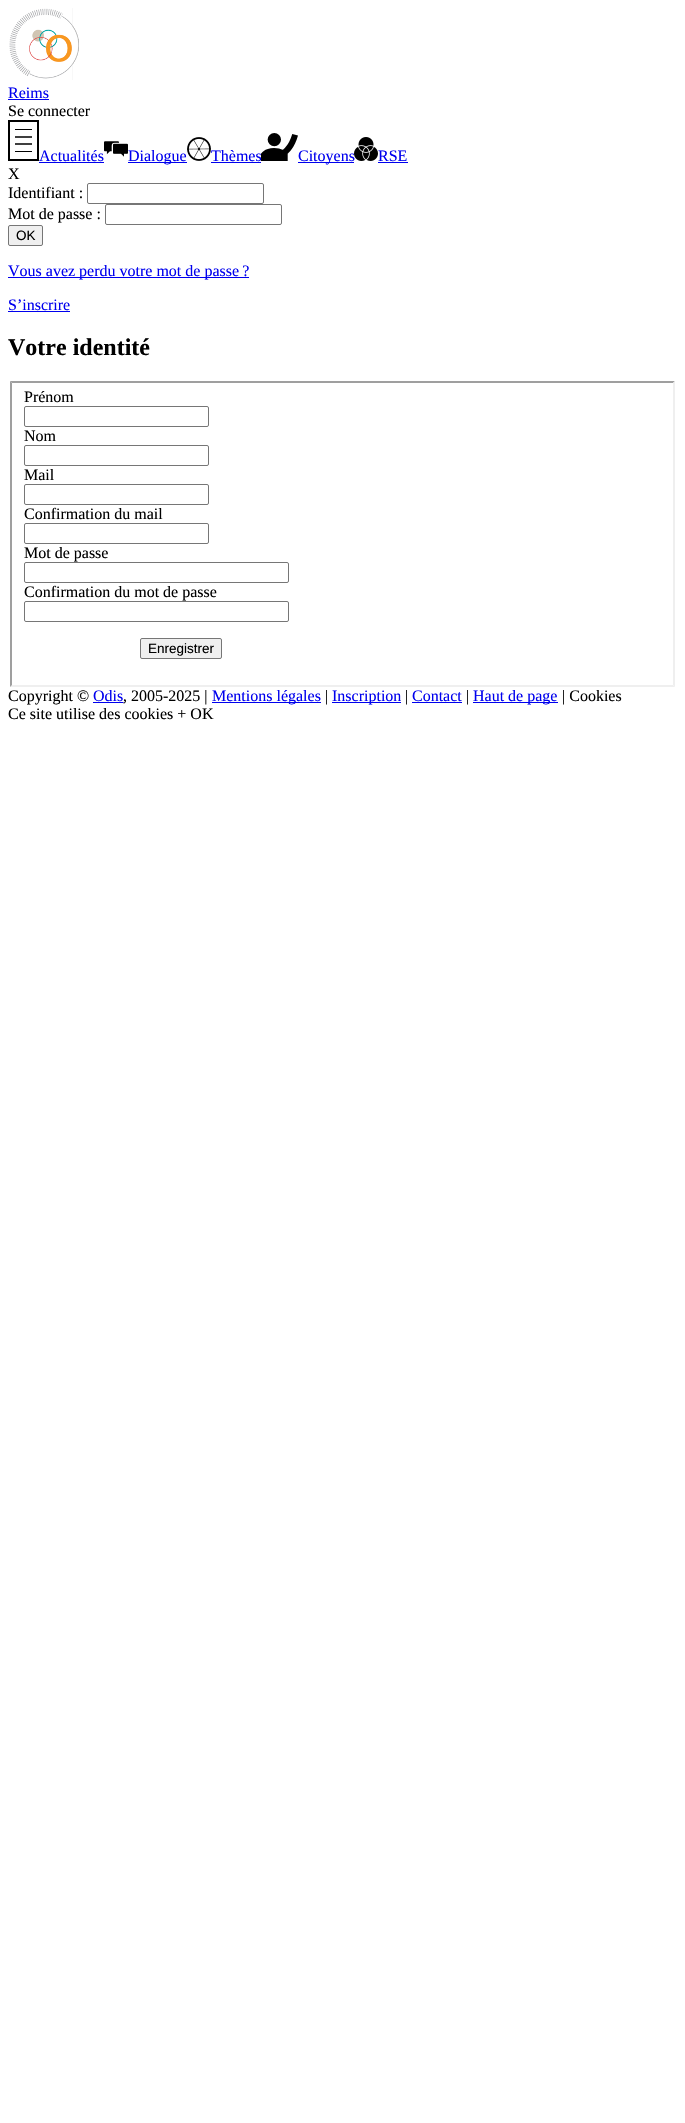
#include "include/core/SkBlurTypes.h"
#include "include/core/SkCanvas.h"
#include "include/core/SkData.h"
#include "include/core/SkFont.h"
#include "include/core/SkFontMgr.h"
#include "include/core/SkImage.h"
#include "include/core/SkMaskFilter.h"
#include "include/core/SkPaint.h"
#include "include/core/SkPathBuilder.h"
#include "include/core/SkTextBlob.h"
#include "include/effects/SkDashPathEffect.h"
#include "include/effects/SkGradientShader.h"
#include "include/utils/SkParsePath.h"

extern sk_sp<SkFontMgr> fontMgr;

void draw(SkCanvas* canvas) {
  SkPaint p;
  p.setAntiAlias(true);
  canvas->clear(SK_ColorWHITE);
  canvas->drawImageRect(SkImages::DeferredFromEncodedData(SkData::MakeFromFileName("images/1.png")), SkRect::MakeLTRB(9, 8, 79, 80), SkSamplingOptions());
  p.setColor(SkColorSetRGB(0, 0, 238));
  canvas->drawRect(SkRect::MakeLTRB(8, 99, 49, 100), p);
  p.setStyle(SkPaint::kStroke_Style);
  p.setStrokeWidth(2);
  p.setColor(SK_ColorBLACK);
  canvas->drawRect(SkRect::MakeLTRB(9, 121, 38, 160), p);
  p.setStrokeWidth(1.4f);
  canvas->drawPath(SkPathBuilder().moveTo(15, 137).lineTo(32, 137).moveTo(15, 144).lineTo(32, 144).detach(), p);
  p.setStyle(SkPaint::kFill_Style);
  canvas->drawRect(SkRect::MakeLTRB(15, 151, 32, 152), p);
  canvas->drawRect(SkRect::MakeLTRB(15, 129, 32, 130), p);
  p.setColor(SkColorSetRGB(0, 0, 238));
  canvas->drawRect(SkRect::MakeLTRB(39, 162, 104, 163), p);
  canvas->drawImageRect(SkImages::DeferredFromEncodedData(SkData::MakeFromFileName("images/2.png")), SkRect::MakeLTRB(104, 141, 128, 157), SkSamplingOptions());
  canvas->drawRect(SkRect::MakeLTRB(128, 162, 187, 163), p);
  canvas->drawImageRect(SkImages::DeferredFromEncodedData(SkData::MakeFromFileName("images/3.png")), SkRect::MakeLTRB(187, 137, 211, 161), SkSamplingOptions());
  canvas->drawRect(SkRect::MakeLTRB(211, 162, 261, 163), p);
  canvas->drawImageRect(SkImages::DeferredFromEncodedData(SkData::MakeFromFileName("images/4.png")), SkRect::MakeLTRB(261, 133, 298, 161), SkSamplingOptions());
  canvas->drawRect(SkRect::MakeLTRB(298, 162, 354, 163), p);
  canvas->drawImageRect(SkImages::DeferredFromEncodedData(SkData::MakeFromFileName("images/5.png")), SkRect::MakeLTRB(354, 137, 378, 161), SkSamplingOptions());
  canvas->drawRect(SkRect::MakeLTRB(378, 162, 408, 163), p);
  p.setStyle(SkPaint::kStroke_Style);
  p.setStrokeWidth(1);
  p.setColor(SkColorSetRGB(118, 118, 118));
  canvas->drawRoundRect(SkRect::MakeLTRB(87.5f, 183.5f, 263.5f, 203.5f), 1.5f, 1.5f, p);
  canvas->drawRoundRect(SkRect::MakeLTRB(105.5f, 204.5f, 281.5f, 224.5f), 1.5f, 1.5f, p);
  p.setStyle(SkPaint::kFill_Style);
  p.setColor(SkColorSetRGB(239, 239, 239));
  canvas->drawRoundRect(SkRect::MakeLTRB(8.5f, 225.5f, 42.5f, 245.5f), 1.5f, 1.5f, p);
  p.setStyle(SkPaint::kStroke_Style);
  p.setColor(SkColorSetRGB(118, 118, 118));
  canvas->drawRoundRect(SkRect::MakeLTRB(8.5f, 225.5f, 42.5f, 245.5f), 1.5f, 1.5f, p);
  p.setStyle(SkPaint::kFill_Style);
  p.setColor(SkColorSetRGB(0, 0, 238));
  canvas->drawRect(SkRect::MakeLTRB(8, 277, 249, 278), p);
  canvas->drawRect(SkRect::MakeLTRB(8, 311, 70, 312), p);
  p.setColor(SkColorSetRGB(159, 159, 159));
  canvas->drawPath(SkPathBuilder().moveTo(10, 381).lineTo(675, 381).lineTo(673, 383).lineTo(12, 383).close().detach(), p);
  p.setColor(SkColorSetRGB(239, 239, 239));
  canvas->drawPath(SkPathBuilder().moveTo(675, 381).lineTo(675, 687).lineTo(673, 685).lineTo(673, 383).close().detach(), p);
  canvas->drawPath(SkPathBuilder().moveTo(675, 687).lineTo(10, 687).lineTo(12, 685).lineTo(673, 685).close().detach(), p);
  p.setColor(SkColorSetRGB(159, 159, 159));
  canvas->drawPath(SkPathBuilder().moveTo(10, 687).lineTo(10, 381).lineTo(12, 383).lineTo(12, 685).close().detach(), p);
  p.setStyle(SkPaint::kStroke_Style);
  p.setColor(SkColorSetRGB(118, 118, 118));
  canvas->drawRoundRect(SkRect::MakeLTRB(24.5f, 406.5f, 208.5f, 426.5f), 1.5f, 1.5f, p);
  canvas->drawRoundRect(SkRect::MakeLTRB(24.5f, 445.5f, 208.5f, 465.5f), 1.5f, 1.5f, p);
  canvas->drawRoundRect(SkRect::MakeLTRB(24.5f, 484.5f, 208.5f, 504.5f), 1.5f, 1.5f, p);
  canvas->drawRoundRect(SkRect::MakeLTRB(24.5f, 523.5f, 208.5f, 543.5f), 1.5f, 1.5f, p);
  canvas->drawRoundRect(SkRect::MakeLTRB(24.5f, 562.5f, 288.5f, 582.5f), 1.5f, 1.5f, p);
  canvas->drawRoundRect(SkRect::MakeLTRB(24.5f, 601.5f, 288.5f, 621.5f), 1.5f, 1.5f, p);
  p.setStyle(SkPaint::kFill_Style);
  p.setColor(SkColorSetRGB(239, 239, 239));
  canvas->drawRoundRect(SkRect::MakeLTRB(140.5f, 638.5f, 221.5f, 658.5f), 1.5f, 1.5f, p);
  p.setStyle(SkPaint::kStroke_Style);
  p.setColor(SkColorSetRGB(118, 118, 118));
  canvas->drawRoundRect(SkRect::MakeLTRB(140.5f, 638.5f, 221.5f, 658.5f), 1.5f, 1.5f, p);
  p.setColor(SkColorSetRGB(0, 0, 238));
  p.setPathEffect(SkDashPathEffect::Make({{1, 1}}, 0));
  canvas->drawPath(SkPathBuilder().moveTo(93, 702.5f).lineTo(123.5f, 702.5f).detach(), p);
  p.setPathEffect(nullptr);
  p.setStyle(SkPaint::kFill_Style);
  canvas->drawRect(SkRect::MakeLTRB(93, 702, 123, 703), p);
  canvas->drawRect(SkRect::MakeLTRB(212, 702, 321, 703), p);
  canvas->drawRect(SkRect::MakeLTRB(332, 702, 401, 703), p);
  canvas->drawRect(SkRect::MakeLTRB(412, 702, 462, 703), p);
  canvas->drawRect(SkRect::MakeLTRB(473, 702, 558, 703), p);
  SkFont font1(fontMgr->matchFamilyStyle("Liberation Serif", SkFontStyle::Normal()), 16);
  font1.setSubpixel(true);
  canvas->drawString("Reims", 8, 98, font1, p);
  p.setColor(SK_ColorBLACK);
  canvas->drawString("Se connecter", 8, 116, font1, p);
  p.setColor(SkColorSetRGB(0, 0, 238));
  canvas->drawString("Actualités", 39, 161, font1, p);
  canvas->drawString("Dialogue", 128, 161, font1, p);
  canvas->drawString("Thèmes", 211, 161, font1, p);
  canvas->drawString("Citoyens", 298, 161, font1, p);
  canvas->drawString("RSE", 378, 161, font1, p);
  p.setColor(SK_ColorBLACK);
  canvas->drawString("X", 8, 179, font1, p);
  canvas->drawString("Identifiant :", 8, 198, font1, p);
  canvas->drawString("Mot de passe :", 8, 219, font1, p);
  SkFont font2(fontMgr->matchFamilyStyle("Liberation Sans", SkFontStyle::Normal()), 13.5f);
  font2.setSubpixel(true);
  canvas->drawString("OK", 16, 240, font2, p);
  p.setColor(SkColorSetRGB(0, 0, 238));
  canvas->drawString("Vous avez perdu votre mot de passe ?", 8, 276, font1, p);
  canvas->drawString("S’inscrire", 8, 310, font1, p);
  SkFont font3(fontMgr->matchFamilyStyle("Liberation Serif", SkFontStyle::Bold()), 24);
  font3.setSubpixel(true);
  p.setColor(SK_ColorBLACK);
  canvas->drawString("Votre identité", 8, 355, font3, p);
  canvas->drawString("Prénom", 24, 402, font1, p);
  canvas->drawString("Nom", 24, 441, font1, p);
  canvas->drawString("Mail", 24, 480, font1, p);
  canvas->drawString("Confirmation du mail", 24, 519, font1, p);
  canvas->drawString("Mot de passe", 24, 558, font1, p);
  canvas->drawString("Confirmation du mot de passe", 24, 597, font1, p);
  canvas->drawString("Enregistrer", 148, 653, font2, p);
  canvas->drawString("Copyright ©", 8, 701, font1, p);
  p.setColor(SkColorSetRGB(0, 0, 238));
  canvas->drawString("Odis", 93, 701, font1, p);
  p.setColor(SK_ColorBLACK);
  canvas->drawString(", 2005-2025 |", 123, 701, font1, p);
  p.setColor(SkColorSetRGB(0, 0, 238));
  canvas->drawString("Mentions légales", 212, 701, font1, p);
  p.setColor(SK_ColorBLACK);
  canvas->drawString("|", 325, 701, font1, p);
  p.setColor(SkColorSetRGB(0, 0, 238));
  canvas->drawString("Inscription", 332, 701, font1, p);
  p.setColor(SK_ColorBLACK);
  canvas->drawString("|", 405, 701, font1, p);
  p.setColor(SkColorSetRGB(0, 0, 238));
  canvas->drawString("Contact", 412, 701, font1, p);
  p.setColor(SK_ColorBLACK);
  canvas->drawString("|", 466, 701, font1, p);
  p.setColor(SkColorSetRGB(0, 0, 238));
  canvas->drawString("Haut de page", 473, 701, font1, p);
  p.setColor(SK_ColorBLACK);
  canvas->drawString("| Cookies", 562, 701, font1, p);
  canvas->drawString("Ce site utilise des cookies + OK", 8, 719, font1, p);
}
